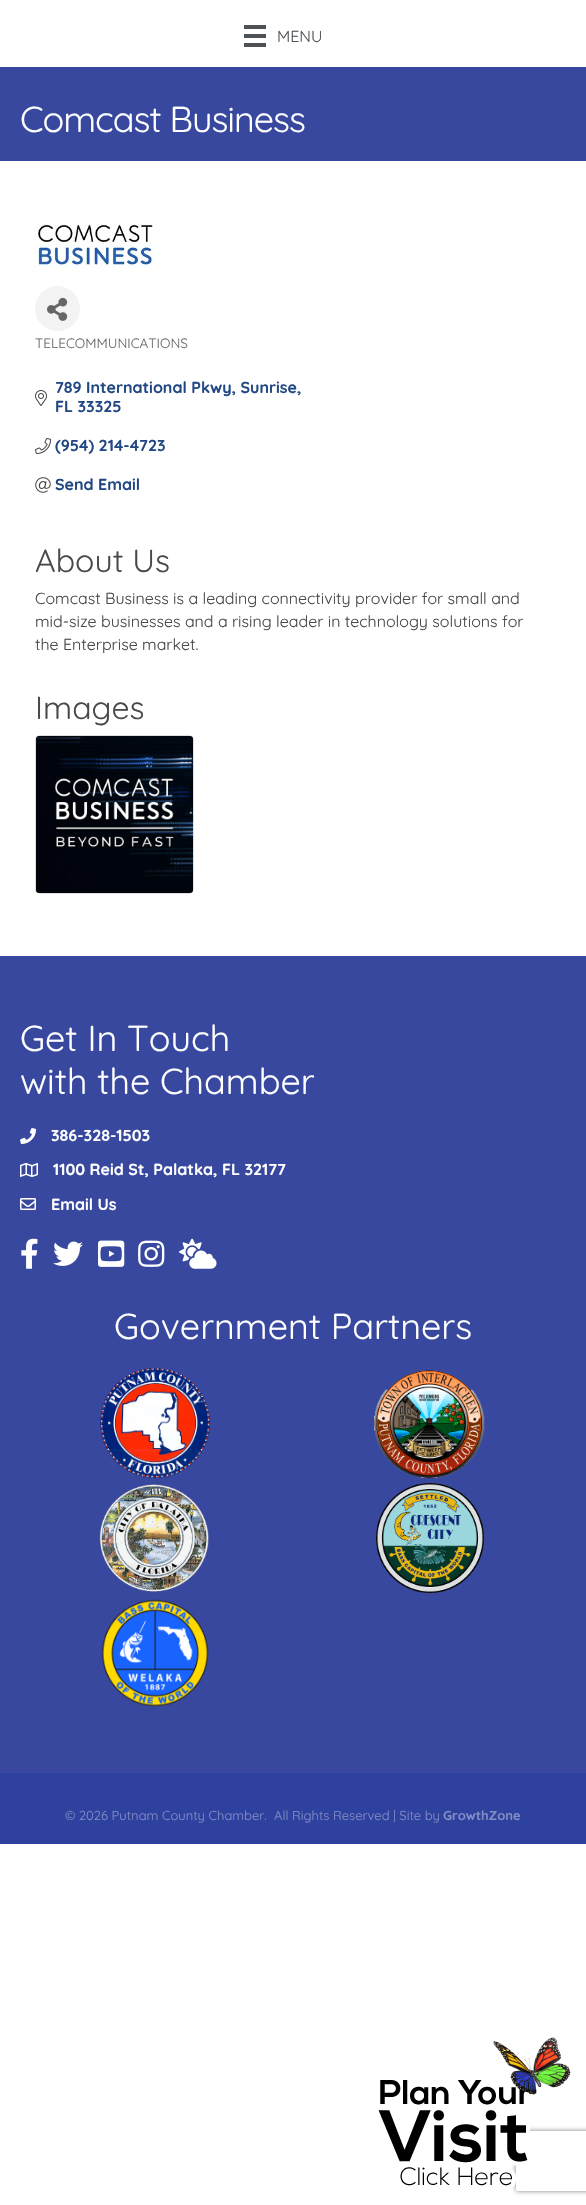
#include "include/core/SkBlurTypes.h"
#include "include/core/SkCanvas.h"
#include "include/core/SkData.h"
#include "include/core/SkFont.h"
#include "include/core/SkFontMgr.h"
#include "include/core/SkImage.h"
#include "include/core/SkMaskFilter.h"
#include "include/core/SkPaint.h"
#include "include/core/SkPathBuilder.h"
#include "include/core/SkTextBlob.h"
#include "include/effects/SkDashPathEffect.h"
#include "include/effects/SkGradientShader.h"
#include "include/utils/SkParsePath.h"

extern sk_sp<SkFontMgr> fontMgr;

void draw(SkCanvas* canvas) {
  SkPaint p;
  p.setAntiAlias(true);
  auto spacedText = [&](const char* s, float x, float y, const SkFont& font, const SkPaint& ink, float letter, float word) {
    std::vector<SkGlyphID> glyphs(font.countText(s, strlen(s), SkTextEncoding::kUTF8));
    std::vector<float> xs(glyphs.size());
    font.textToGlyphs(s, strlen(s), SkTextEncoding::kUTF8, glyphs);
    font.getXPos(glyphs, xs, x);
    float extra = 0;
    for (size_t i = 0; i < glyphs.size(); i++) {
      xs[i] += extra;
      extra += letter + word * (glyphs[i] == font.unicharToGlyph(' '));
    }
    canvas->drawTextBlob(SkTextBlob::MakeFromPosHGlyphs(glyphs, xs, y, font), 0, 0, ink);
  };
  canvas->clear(SK_ColorWHITE);
  p.setColor(SkColorSetRGB(76, 82, 86));
  canvas->drawRect(SkRect::MakeLTRB(244, 25, 266, 29), p);
  canvas->drawRect(SkRect::MakeLTRB(244, 34, 266, 38), p);
  canvas->drawRect(SkRect::MakeLTRB(244, 43, 266, 47), p);
  p.setColor(SkColorSetRGB(55, 72, 158));
  canvas->drawRect(SkRect::MakeLTRB(0, 67, 586, 161), p);
  canvas->drawImageRect(SkImages::DeferredFromEncodedData(SkData::MakeFromFileName("images/1.png")), SkRect::MakeLTRB(35, 224, 155, 268), SkSamplingOptions());
  p.setColor(SkColorSetRGB(243, 243, 243));
  canvas->drawCircle(57.5f, 308.5f, 22.5f, p);
  canvas->drawImageRect(SkImages::DeferredFromEncodedData(SkData::MakeFromFileName("images/2.png")), SkRect::MakeLTRB(47, 297, 68, 321), SkSamplingOptions());
  canvas->drawImageRect(SkImages::DeferredFromEncodedData(SkData::MakeFromFileName("images/3.png")), SkRect::MakeLTRB(35, 390, 47, 406), SkSamplingOptions());
  canvas->drawImageRect(SkImages::DeferredFromEncodedData(SkData::MakeFromFileName("images/4.png")), SkRect::MakeLTRB(35, 438, 51, 454), SkSamplingOptions());
  canvas->drawImageRect(SkImages::DeferredFromEncodedData(SkData::MakeFromFileName("images/5.png")), SkRect::MakeLTRB(35, 477, 51, 493), SkSamplingOptions());
  p.setStyle(SkPaint::kStroke_Style);
  p.setStrokeWidth(1);
  p.setColor(SkColorSetRGB(223, 223, 223));
  canvas->drawRoundRect(SkRect::MakeLTRB(35.5f, 735.5f, 193.5f, 893.5f), 4.5f, 4.5f, p);
  canvas->drawImageRect(SkImages::DeferredFromEncodedData(SkData::MakeFromFileName("images/6.png")), SkRect::MakeLTRB(36, 736, 193, 893), SkSamplingOptions());
  p.setStyle(SkPaint::kFill_Style);
  p.setColor(SkColorSetRGB(55, 72, 158));
  canvas->drawRect(SkRect::MakeLTRB(0, 956, 586, 1773), p);
  canvas->drawImageRect(SkImages::DeferredFromEncodedData(SkData::MakeFromFileName("images/7.png")), SkRect::MakeLTRB(20, 1128, 36, 1144), SkSamplingOptions());
  canvas->drawImageRect(SkImages::DeferredFromEncodedData(SkData::MakeFromFileName("images/8.png")), SkRect::MakeLTRB(20, 1163, 38, 1177), SkSamplingOptions());
  canvas->drawImageRect(SkImages::DeferredFromEncodedData(SkData::MakeFromFileName("images/9.png")), SkRect::MakeLTRB(20, 1198, 36, 1210), SkSamplingOptions());
  canvas->drawImageRect(SkImages::DeferredFromEncodedData(SkData::MakeFromFileName("images/10.png")), SkRect::MakeLTRB(21, 1238, 38, 1269), SkSamplingOptions());
  canvas->drawImageRect(SkImages::DeferredFromEncodedData(SkData::MakeFromFileName("images/11.png")), SkRect::MakeLTRB(53, 1241, 83, 1266), SkSamplingOptions());
  canvas->drawImageRect(SkImages::DeferredFromEncodedData(SkData::MakeFromFileName("images/12.png")), SkRect::MakeLTRB(98, 1240, 125, 1267), SkSamplingOptions());
  canvas->drawImageRect(SkImages::DeferredFromEncodedData(SkData::MakeFromFileName("images/13.png")), SkRect::MakeLTRB(138, 1240, 165, 1267), SkSamplingOptions());
  canvas->drawImageRect(SkImages::DeferredFromEncodedData(SkData::MakeFromFileName("images/14.png")), SkRect::MakeLTRB(179, 1238, 217, 1269), SkSamplingOptions());
  canvas->drawImageRect(SkImages::DeferredFromEncodedData(SkData::MakeFromFileName("images/15.png")), SkRect::MakeLTRB(100, 1368, 210, 1478), SkSamplingOptions());
  canvas->drawImageRect(SkImages::DeferredFromEncodedData(SkData::MakeFromFileName("images/16.png")), SkRect::MakeLTRB(374, 1370, 485, 1478), SkSamplingOptions());
  canvas->drawImageRect(SkImages::DeferredFromEncodedData(SkData::MakeFromFileName("images/17.png")), SkRect::MakeLTRB(99, 1484, 209, 1592), SkSamplingOptions());
  canvas->drawImageRect(SkImages::DeferredFromEncodedData(SkData::MakeFromFileName("images/18.png")), SkRect::MakeLTRB(376, 1483, 484, 1593), SkSamplingOptions());
  canvas->drawImageRect(SkImages::DeferredFromEncodedData(SkData::MakeFromFileName("images/19.png")), SkRect::MakeLTRB(101, 1599, 209, 1707), SkSamplingOptions());
  p.setColor(SkColorSetRGB(47, 65, 158));
  canvas->drawRect(SkRect::MakeLTRB(0, 1773, 586, 1844), p);
  canvas->save();
  canvas->clipPath(SkPathBuilder(SkPathFillType::kEvenOdd).moveTo(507, 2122).lineTo(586, 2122).lineTo(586, 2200).lineTo(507, 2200).close().moveTo(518, 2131).lineTo(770, 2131).cubicTo(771, 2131, 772, 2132, 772, 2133).lineTo(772, 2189).cubicTo(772, 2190, 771, 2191, 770, 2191).lineTo(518, 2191).cubicTo(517, 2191, 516, 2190, 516, 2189).lineTo(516, 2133).cubicTo(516, 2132, 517, 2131, 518, 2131).close().detach(), true);
  p.setColor(SkColorSetRGB(128, 128, 128));
  p.setMaskFilter(SkMaskFilter::MakeBlur(kNormal_SkBlurStyle, 2.5f));
  canvas->drawRoundRect(SkRect::MakeLTRB(516, 2131, 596, 2191), 2, 2, p);
  p.setMaskFilter(nullptr);
  canvas->restore();
  canvas->drawImageRect(SkImages::DeferredFromEncodedData(SkData::MakeFromFileName("images/20.png")), SkRect::MakeLTRB(378, 2037, 571, 2188), SkSamplingOptions());
  SkFont font1(fontMgr->matchFamilyStyle("Quicksand", SkFontStyle::Normal()), 16);
  font1.setSubpixel(true);
  p.setColor(SkColorSetRGB(76, 82, 86));
  canvas->drawString("MENU", 277, 42, font1, p);
  SkFont font2(fontMgr->matchFamilyStyle("Quicksand", SkFontStyle::Normal()), 36);
  font2.setSubpixel(true);
  p.setColor(SK_ColorWHITE);
  spacedText("Comcast Business", 20, 132, font2, p, -1, 0);
  SkFont font3(fontMgr->matchFamilyStyle("Quicksand", SkFontStyle::Normal()), 13.6f);
  font3.setSubpixel(true);
  p.setColor(SkColorSetRGB(105, 105, 105));
  canvas->drawString("TELECOMMUNICATIONS", 35, 348, font3, p);
  SkFont font4(fontMgr->matchFamilyStyle("Quicksand", SkFontStyle::Bold()), 16);
  font4.setSubpixel(true);
  p.setColor(SkColorSetRGB(34, 72, 132));
  canvas->drawString("789 International Pkwy, Sunrise,", 55, 393, font4, p);
  canvas->drawString("FL 33325", 55, 412, font4, p);
  canvas->drawString("(954) 214-4723", 55, 451, font4, p);
  canvas->drawString("Send Email", 55, 490, font4, p);
  SkFont font5(fontMgr->matchFamilyStyle("Quicksand", SkFontStyle::Normal()), 32);
  font5.setSubpixel(true);
  p.setColor(SkColorSetRGB(73, 73, 73));
  canvas->drawString("About Us", 35, 572, font5, p);
  canvas->drawString("Comcast Business is a leading connectivity provider for small and", 35, 604, font1, p);
  canvas->drawString("mid-size businesses and a rising leader in technology solutions for", 35, 627, font1, p);
  canvas->drawString("the Enterprise market.", 35, 650, font1, p);
  canvas->drawString("Images", 35, 719, font5, p);
  p.setColor(SK_ColorWHITE);
  canvas->drawString("Get In Touch", 20, 1051, font2, p);
  canvas->drawString("with the Chamber", 20, 1094, font2, p);
  canvas->drawString("386-328-1503", 51, 1141, font4, p);
  canvas->drawString("1100 Reid St, Palatka, FL 32177", 53, 1175, font4, p);
  canvas->drawString("Email Us", 51, 1210, font4, p);
  canvas->drawString("Government Partners", 114, 1339, font2, p);
  SkFont font6(fontMgr->matchFamilyStyle("Quicksand", SkFontStyle::Normal()), 13);
  font6.setSubpixel(true);
  p.setColor(SkColorSetRGB(130, 141, 197));
  canvas->drawString("© 2026 Putnam County Chamber.", 65, 1820, font6, p);
  canvas->drawString("All Rights Reserved | Site by", 274, 1820, font6, p);
  SkFont font7(fontMgr->matchFamilyStyle("Quicksand", SkFontStyle::Bold()), 13);
  font7.setSubpixel(true);
  canvas->drawString("GrowthZone", 443, 1820, font7, p);
}
